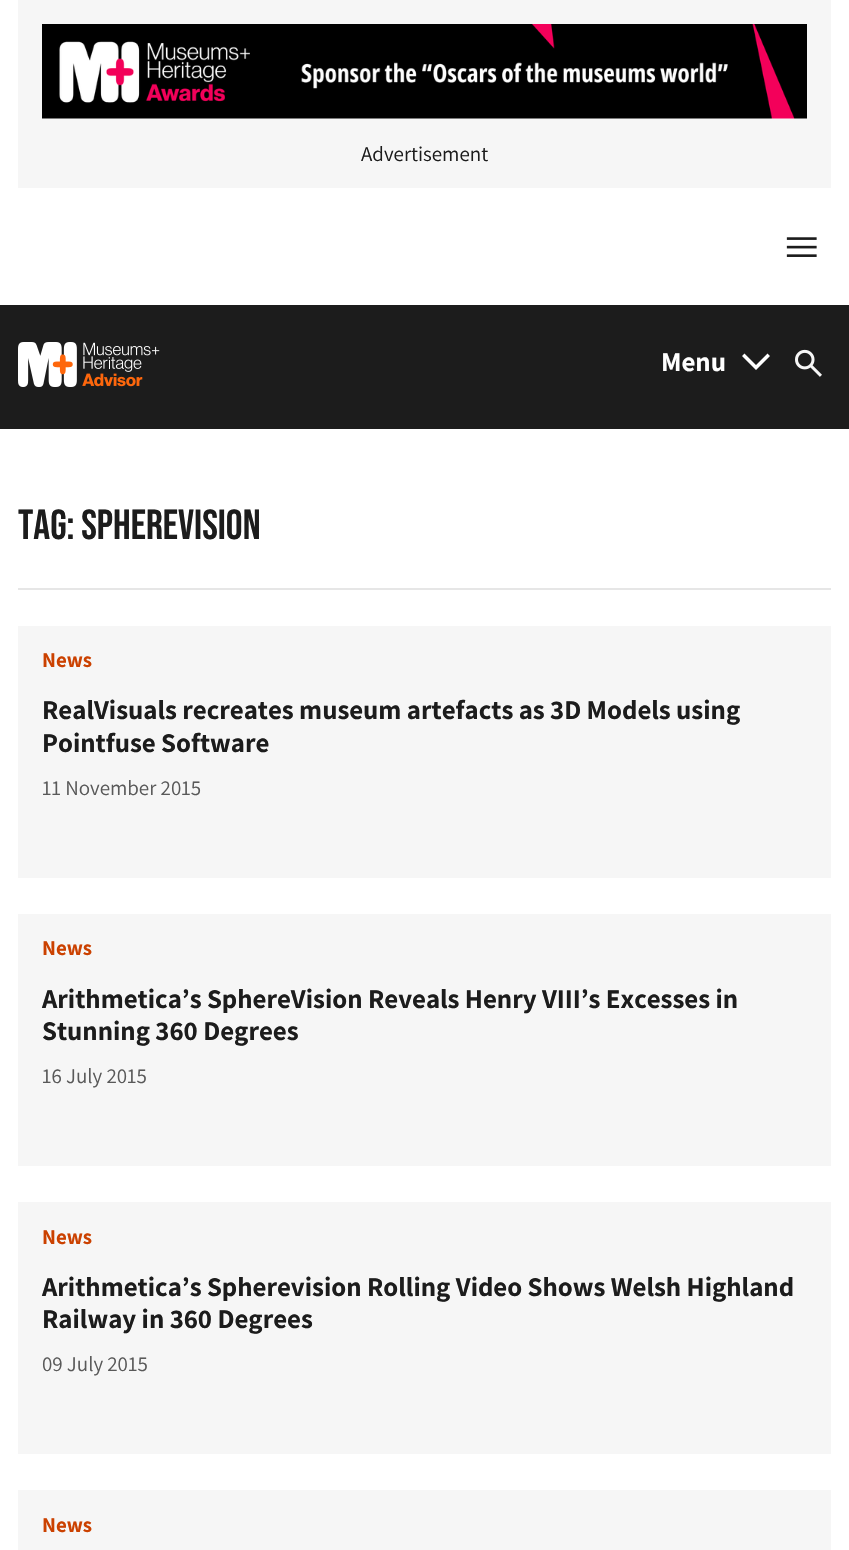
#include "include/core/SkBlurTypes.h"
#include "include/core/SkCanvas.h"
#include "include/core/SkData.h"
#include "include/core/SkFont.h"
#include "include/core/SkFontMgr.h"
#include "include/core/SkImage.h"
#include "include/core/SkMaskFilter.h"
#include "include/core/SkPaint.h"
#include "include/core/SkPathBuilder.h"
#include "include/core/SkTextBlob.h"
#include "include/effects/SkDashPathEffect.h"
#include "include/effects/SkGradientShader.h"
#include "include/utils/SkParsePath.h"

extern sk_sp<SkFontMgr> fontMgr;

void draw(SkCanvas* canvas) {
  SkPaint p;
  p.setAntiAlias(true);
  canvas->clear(SK_ColorWHITE);
  p.setColor(SkColorSetRGB(246, 246, 246));
  canvas->drawRect(SkRect::MakeLTRB(18, 0, 831, 188), p);
  canvas->drawImageRect(SkImages::DeferredFromEncodedData(SkData::MakeFromFileName("images/1.png")), SkRect::MakeLTRB(42, 24, 807, 119), SkSamplingOptions());
  canvas->drawImageRect(SkImages::DeferredFromEncodedData(SkData::MakeFromFileName("images/2.png")), SkRect::MakeLTRB(786, 237, 817, 257), SkSamplingOptions());
  p.setColor(SkColorSetRGB(28, 28, 28));
  canvas->drawRect(SkRect::MakeLTRB(0, 305, 849, 429), p);
  canvas->drawImageRect(SkImages::DeferredFromEncodedData(SkData::MakeFromFileName("images/3.png")), SkRect::MakeLTRB(18, 342, 160, 387), SkSamplingOptions());
  p.setColor(SK_ColorWHITE);
  canvas->drawPath(SkPathBuilder().moveTo(756, 370).lineTo(742, 356).lineTo(744.5f, 353.5f).lineTo(756, 365).lineTo(767.5f, 353.5f).lineTo(770, 356).close().detach(), p);
  canvas->drawImageRect(SkImages::DeferredFromEncodedData(SkData::MakeFromFileName("images/4.png")), SkRect::MakeLTRB(795, 349, 822, 377), SkSamplingOptions());
  p.setColor(SkColorSetRGB(230, 230, 230));
  canvas->drawRect(SkRect::MakeLTRB(18, 588, 831, 590), p);
  p.setColor(SkColorSetRGB(246, 246, 246));
  canvas->drawRect(SkRect::MakeLTRB(18, 626, 831, 878), p);
  canvas->drawRect(SkRect::MakeLTRB(18, 914, 831, 1166), p);
  canvas->drawRect(SkRect::MakeLTRB(18, 1202, 831, 1454), p);
  canvas->drawRect(SkRect::MakeLTRB(18, 1490, 831, 1550), p);
  SkFont font1(fontMgr->matchFamilyStyle("Assistant", SkFontStyle::Normal()), 21);
  font1.setSubpixel(true);
  p.setColor(SkColorSetRGB(28, 28, 28));
  canvas->drawString("Advertisement", 361, 161, font1, p);
  SkFont font2(fontMgr->matchFamilyStyle("Assistant", SkFontStyle::Bold()), 27);
  font2.setSubpixel(true);
  p.setColor(SK_ColorWHITE);
  canvas->drawString("Menu", 661, 371, font2, p);
  SkFont font3(fontMgr->matchFamilyStyle("Bebas Neue", SkFontStyle::Normal()), 42);
  font3.setSubpixel(true);
  p.setColor(SkColorSetRGB(28, 28, 28));
  canvas->drawString("TAG: SPHEREVISION", 18, 539, font3, p);
  SkFont font4(fontMgr->matchFamilyStyle("Assistant", SkFontStyle::Bold()), 21);
  font4.setSubpixel(true);
  p.setColor(SkColorSetRGB(203, 65, 0));
  canvas->drawString("News", 42, 667, font4, p);
  p.setColor(SkColorSetRGB(28, 28, 28));
  canvas->drawString("RealVisuals recreates museum artefacts as 3D Models using", 42, 719, font2, p);
  canvas->drawString("Pointfuse Software", 42, 752, font2, p);
  p.setColor(SkColorSetRGB(89, 89, 89));
  canvas->drawString("11 November 2015", 42, 795, font1, p);
  p.setColor(SkColorSetRGB(203, 65, 0));
  canvas->drawString("News", 42, 955, font4, p);
  p.setColor(SkColorSetRGB(28, 28, 28));
  canvas->drawString("Arithmetica’s SphereVision Reveals Henry VIII’s Excesses in", 42, 1008, font2, p);
  canvas->drawString("Stunning 360 Degrees", 42, 1040, font2, p);
  p.setColor(SkColorSetRGB(89, 89, 89));
  canvas->drawString("16 July 2015", 42, 1083, font1, p);
  p.setColor(SkColorSetRGB(203, 65, 0));
  canvas->drawString("News", 42, 1244, font4, p);
  p.setColor(SkColorSetRGB(28, 28, 28));
  canvas->drawString("Arithmetica’s Spherevision Rolling Video Shows Welsh Highland", 42, 1296, font2, p);
  canvas->drawString("Railway in 360 Degrees", 42, 1328, font2, p);
  p.setColor(SkColorSetRGB(89, 89, 89));
  canvas->drawString("09 July 2015", 42, 1371, font1, p);
  p.setColor(SkColorSetRGB(203, 65, 0));
  canvas->drawString("News", 42, 1532, font4, p);
}
